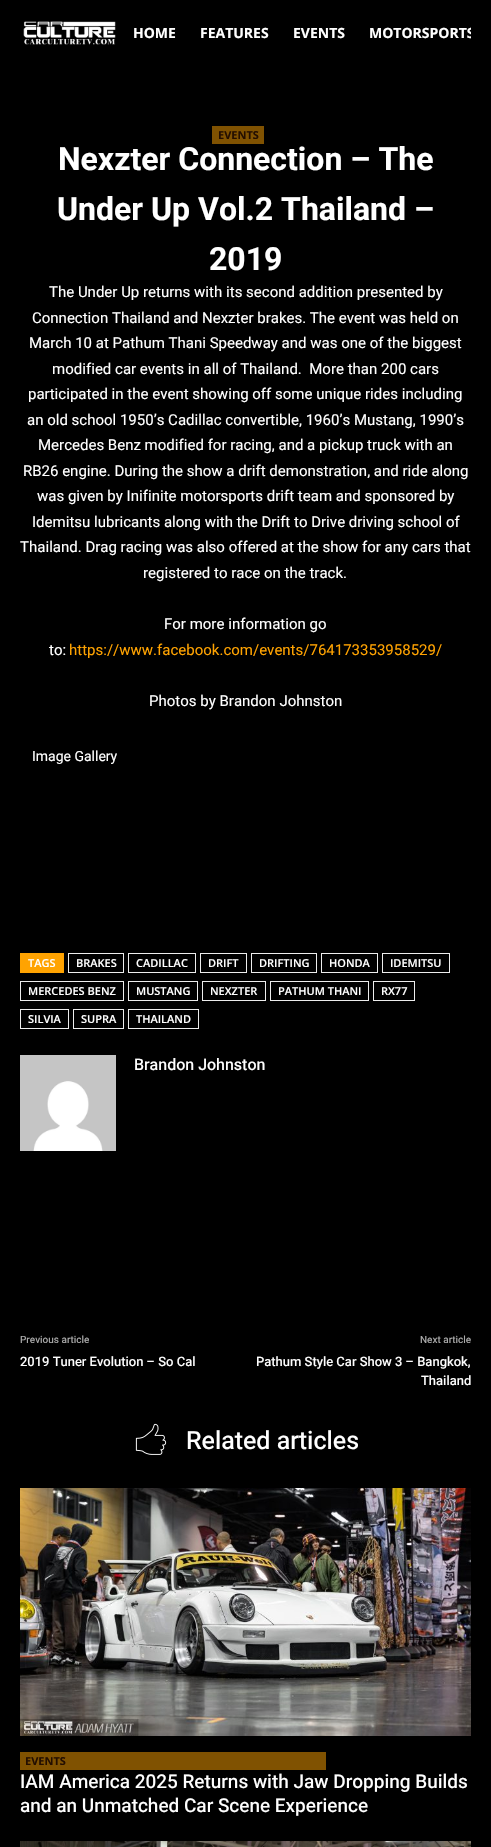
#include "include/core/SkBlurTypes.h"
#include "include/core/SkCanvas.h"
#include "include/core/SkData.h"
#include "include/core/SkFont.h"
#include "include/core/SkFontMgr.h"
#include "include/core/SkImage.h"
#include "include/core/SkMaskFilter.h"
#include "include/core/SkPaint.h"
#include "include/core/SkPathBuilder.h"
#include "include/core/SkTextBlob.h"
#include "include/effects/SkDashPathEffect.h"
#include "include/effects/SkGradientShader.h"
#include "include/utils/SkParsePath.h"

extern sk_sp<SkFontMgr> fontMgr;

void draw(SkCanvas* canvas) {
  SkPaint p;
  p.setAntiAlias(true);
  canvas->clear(SK_ColorBLACK);
  canvas->drawImageRect(SkImages::DeferredFromEncodedData(SkData::MakeFromFileName("images/1.png")), SkRect::MakeLTRB(23, 21, 116, 45), SkSamplingOptions());
  p.setColor(SkColorSetRGB(128, 82, 1));
  canvas->drawRect(SkRect::MakeLTRB(212, 126, 264, 144), p);
  p.setColor(SkColorSetRGB(255, 163, 1));
  canvas->drawRect(SkRect::MakeLTRB(20, 953, 64, 973), p);
  p.setStyle(SkPaint::kStroke_Style);
  p.setStrokeWidth(1);
  p.setColor(SkColorSetRGB(237, 237, 237));
  canvas->drawRect(SkRect::MakeLTRB(68.5f, 953.5f, 123.5f, 972.5f), p);
  canvas->drawRect(SkRect::MakeLTRB(128.5f, 953.5f, 195.5f, 972.5f), p);
  canvas->drawRect(SkRect::MakeLTRB(200.5f, 953.5f, 246.5f, 972.5f), p);
  canvas->drawRect(SkRect::MakeLTRB(251.5f, 953.5f, 316.5f, 972.5f), p);
  canvas->drawRect(SkRect::MakeLTRB(321.5f, 953.5f, 377.5f, 972.5f), p);
  canvas->drawRect(SkRect::MakeLTRB(382.5f, 953.5f, 449.5f, 972.5f), p);
  canvas->drawRect(SkRect::MakeLTRB(20.5f, 981.5f, 123.5f, 1000.5f), p);
  canvas->drawRect(SkRect::MakeLTRB(128.5f, 981.5f, 197.5f, 1000.5f), p);
  canvas->drawRect(SkRect::MakeLTRB(202.5f, 981.5f, 265.5f, 1000.5f), p);
  canvas->drawRect(SkRect::MakeLTRB(270.5f, 981.5f, 368.5f, 1000.5f), p);
  canvas->drawRect(SkRect::MakeLTRB(373.5f, 981.5f, 414.5f, 1000.5f), p);
  canvas->drawRect(SkRect::MakeLTRB(20.5f, 1009.5f, 68.5f, 1028.5f), p);
  canvas->drawRect(SkRect::MakeLTRB(73.5f, 1009.5f, 123.5f, 1028.5f), p);
  canvas->drawRect(SkRect::MakeLTRB(128.5f, 1009.5f, 198.5f, 1028.5f), p);
  canvas->drawImageRect(SkImages::DeferredFromEncodedData(SkData::MakeFromFileName("images/2.png")), SkRect::MakeLTRB(20, 1055, 116, 1151), SkSamplingOptions());
  canvas->drawImageRect(SkImages::DeferredFromEncodedData(SkData::MakeFromFileName("images/3.png")), SkRect::MakeLTRB(135, 1423, 167, 1455), SkSamplingOptions());
  canvas->drawImageRect(SkImages::DeferredFromEncodedData(SkData::MakeFromFileName("images/4.png")), SkRect::MakeLTRB(20, 1488, 471, 1736), SkSamplingOptions());
  p.setStyle(SkPaint::kFill_Style);
  p.setColor(SkColorSetRGB(128, 82, 1));
  canvas->drawRect(SkRect::MakeLTRB(20, 1752, 326, 1770), p);
  canvas->drawImageRect(SkImages::DeferredFromEncodedData(SkData::MakeFromFileName("images/5.png")), SkRect::MakeLTRB(20, 1841, 471, 1847), SkSamplingOptions());
  SkFont font1(fontMgr->matchFamilyStyle("Open Sans", SkFontStyle::Bold()), 14);
  font1.setSubpixel(true);
  p.setColor(SK_ColorWHITE);
  canvas->drawString("HOME", 133, 38, font1, p);
  canvas->drawString("FEATURES", 200, 38, font1, p);
  canvas->drawString("EVENTS", 293, 38, font1, p);
  canvas->save();
  canvas->clipRect(SkRect::MakeLTRB(133, 5, 471, 61));
  canvas->drawString("MOTORSPORTS", 369, 38, font1, p);
  canvas->restore();
  SkFont font2(fontMgr->matchFamilyStyle("Open Sans", SkFontStyle::Bold()), 11);
  font2.setSubpixel(true);
  p.setColor(SkColorSetRGB(35, 14, 0));
  canvas->drawString("EVENTS", 218, 139, font2, p);
  SkFont font3(fontMgr->matchFamilyStyle("Roboto", SkFontStyle::Bold()), 32);
  font3.setSubpixel(true);
  p.setColor(SK_ColorWHITE);
  canvas->drawString("Nexzter Connection – The", 58, 170, font3, p);
  canvas->drawString("Under Up Vol.2 Thailand –", 57, 220, font3, p);
  canvas->drawString("2019", 209, 270, font3, p);
  SkFont font4(fontMgr->matchFamilyStyle("Heebo", SkFontStyle::Normal()), 15);
  font4.setSubpixel(true);
  canvas->drawString("The Under Up returns with its second addition presented by", 49, 297, font4, p);
  canvas->drawString("Connection Thailand and Nexzter brakes. The event was held on", 32, 323, font4, p);
  canvas->drawString("March 10 at Pathum Thani Speedway and was one of the biggest", 29, 348, font4, p);
  canvas->drawString("modified car events in all of Thailand.  More than 200 cars", 52, 374, font4, p);
  canvas->drawString("participated in the event showing off some unique rides including", 28, 399, font4, p);
  canvas->drawString("an old school 1950’s Cadillac convertible, 1960’s Mustang, 1990’s", 27, 425, font4, p);
  canvas->drawString("Mercedes Benz modified for racing, and a pickup truck with an", 38, 450, font4, p);
  canvas->drawString("RB26 engine. During the show a drift demonstration, and ride along", 23, 476, font4, p);
  canvas->drawString("was given by Inifinite motorsports drift team and sponsored by", 37, 501, font4, p);
  canvas->drawString("Idemitsu lubricants along with the Drift to Drive driving school of", 32, 527, font4, p);
  canvas->drawString("Thailand. Drag racing was also offered at the show for any cars that", 20, 552, font4, p);
  canvas->drawString("registered to race on the track.", 143, 578, font4, p);
  canvas->drawString("For more information go", 164, 629, font4, p);
  canvas->drawString("to:", 49, 655, font4, p);
  p.setColor(SkColorSetRGB(255, 163, 1));
  canvas->drawString("https://www.facebook.com/events/764173353958529/", 69, 655, font4, p);
  p.setColor(SK_ColorWHITE);
  canvas->drawString("Photos by Brandon Johnston", 149, 706, font4, p);
  SkFont font5(fontMgr->matchFamilyStyle("Roboto", SkFontStyle::Normal()), 14);
  font5.setSubpixel(true);
  canvas->drawString("Image Gallery", 32, 761, font5, p);
  SkFont font6(fontMgr->matchFamilyStyle("Open Sans", SkFontStyle(600, SkFontStyle::kNormal_Width, SkFontStyle::kUpright_Slant)), 11);
  font6.setSubpixel(true);
  canvas->drawString("TAGS", 28, 967, font6, p);
  canvas->drawString("BRAKES", 76, 967, font6, p);
  canvas->drawString("CADILLAC", 136, 967, font6, p);
  canvas->drawString("DRIFT", 208, 967, font6, p);
  canvas->drawString("DRIFTING", 259, 967, font6, p);
  canvas->drawString("HONDA", 329, 967, font6, p);
  canvas->drawString("IDEMITSU", 390, 967, font6, p);
  canvas->drawString("MERCEDES BENZ", 28, 995, font6, p);
  canvas->drawString("MUSTANG", 136, 995, font6, p);
  canvas->drawString("NEXZTER", 210, 995, font6, p);
  canvas->drawString("PATHUM THANI", 278, 995, font6, p);
  canvas->drawString("RX77", 381, 995, font6, p);
  canvas->drawString("SILVIA", 28, 1023, font6, p);
  canvas->drawString("SUPRA", 81, 1023, font6, p);
  canvas->drawString("THAILAND", 136, 1023, font6, p);
  SkFont font7(fontMgr->matchFamilyStyle("Heebo", SkFontStyle(500, SkFontStyle::kNormal_Width, SkFontStyle::kUpright_Slant)), 16);
  font7.setSubpixel(true);
  canvas->drawString("Brandon Johnston", 134, 1070, font7, p);
  SkFont font8(fontMgr->matchFamilyStyle("Heebo", SkFontStyle(500, SkFontStyle::kNormal_Width, SkFontStyle::kUpright_Slant)), 10);
  font8.setSubpixel(true);
  p.setColor(SkColorSetRGB(170, 170, 170));
  canvas->drawString("Previous article", 20, 1343, font8, p);
  SkFont font9(fontMgr->matchFamilyStyle("Heebo", SkFontStyle(500, SkFontStyle::kNormal_Width, SkFontStyle::kUpright_Slant)), 13);
  font9.setSubpixel(true);
  p.setColor(SK_ColorWHITE);
  canvas->drawString("2019 Tuner Evolution – So Cal", 20, 1366, font9, p);
  p.setColor(SkColorSetRGB(170, 170, 170));
  canvas->drawString("Next article", 420, 1343, font8, p);
  p.setColor(SK_ColorWHITE);
  canvas->drawString("Pathum Style Car Show 3 – Bangkok,", 256, 1366, font9, p);
  canvas->drawString("Thailand", 421, 1385, font9, p);
  SkFont font10(fontMgr->matchFamilyStyle("Heebo", SkFontStyle(500, SkFontStyle::kNormal_Width, SkFontStyle::kUpright_Slant)), 25);
  font10.setSubpixel(true);
  canvas->drawString("Related articles", 186, 1449, font10, p);
  p.setColor(SkColorSetRGB(35, 14, 0));
  canvas->drawString("EVENTS", 25, 1765, font2, p);
  SkFont font11(fontMgr->matchFamilyStyle("Heebo", SkFontStyle(500, SkFontStyle::kNormal_Width, SkFontStyle::kUpright_Slant)), 19);
  font11.setSubpixel(true);
  p.setColor(SK_ColorWHITE);
  canvas->drawString("IAM America 2025 Returns with Jaw Dropping Builds", 20, 1788, font11, p);
  canvas->drawString("and an Unmatched Car Scene Experience", 20, 1812, font11, p);
}
